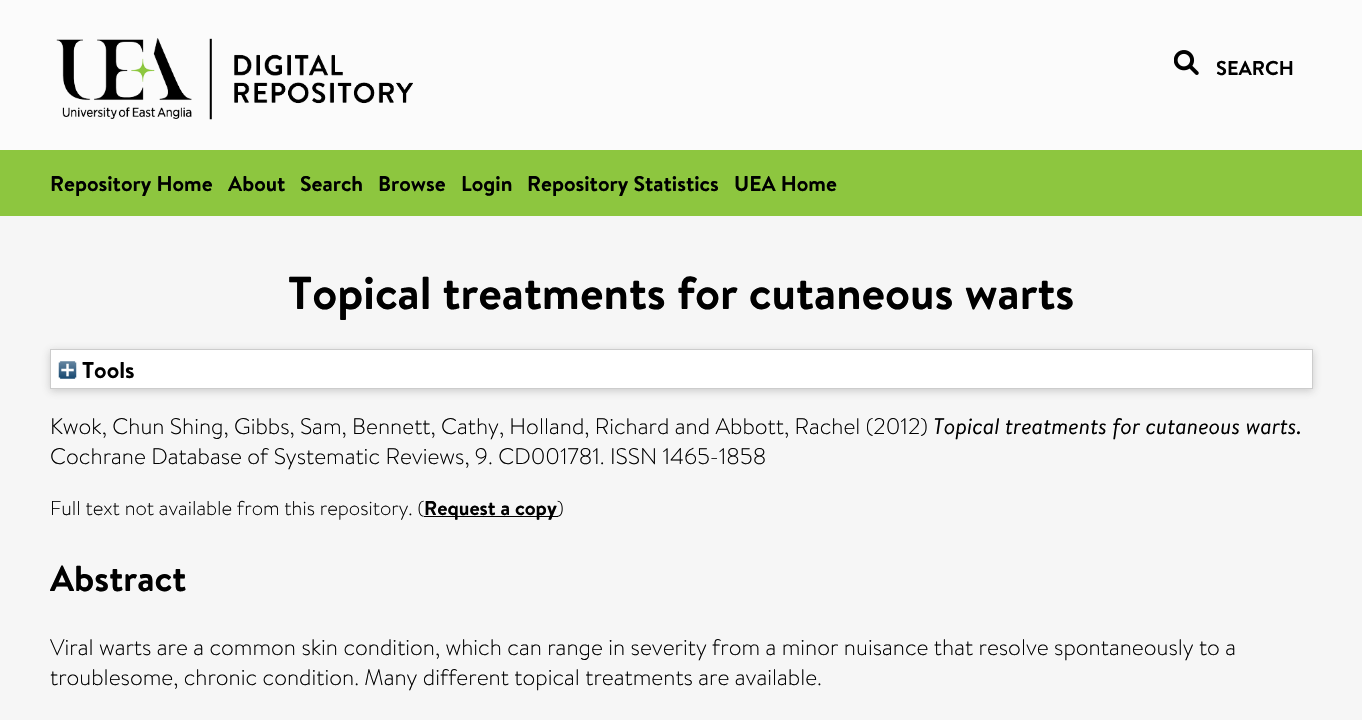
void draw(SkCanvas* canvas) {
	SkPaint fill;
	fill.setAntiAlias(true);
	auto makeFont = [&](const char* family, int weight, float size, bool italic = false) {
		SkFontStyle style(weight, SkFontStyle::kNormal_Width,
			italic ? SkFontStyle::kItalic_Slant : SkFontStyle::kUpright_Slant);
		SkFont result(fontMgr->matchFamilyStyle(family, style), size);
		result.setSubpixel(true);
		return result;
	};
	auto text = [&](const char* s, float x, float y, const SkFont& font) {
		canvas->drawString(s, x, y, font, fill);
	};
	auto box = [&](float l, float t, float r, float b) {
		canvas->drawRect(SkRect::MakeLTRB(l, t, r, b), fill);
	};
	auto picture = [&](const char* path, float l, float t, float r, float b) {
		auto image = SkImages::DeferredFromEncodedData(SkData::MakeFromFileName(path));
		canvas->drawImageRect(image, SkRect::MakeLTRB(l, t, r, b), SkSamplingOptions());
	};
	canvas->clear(0xFFF6F6F6);
	fill.setColor(0xFFFBFBFB);
	box(0, 0, 1362, 150);
	picture("image0.png", 56, 38, 413, 120);
	picture("image1.png", 1174, 50, 1199, 75);
	fill.setColor(0xFF8DC63F);
	box(0, 150, 1362, 216);
	fill.setColor(0x4D646464);
	fill.setMaskFilter(SkMaskFilter::MakeBlur(kNormal_SkBlurStyle, 4));
	canvas->drawRect(SkRect::MakeLTRB(50, 351, 1313, 391), fill);
	fill.setMaskFilter(nullptr);
	fill.setColor(0xFFFFFFFF);
	canvas->drawRect(SkRect::MakeLTRB(50.5f, 349.5f, 1312.5f, 388.5f), fill);
	fill.setStyle(SkPaint::kStroke_Style);
	fill.setStrokeWidth(1);
	fill.setColor(0xFFCCCCCC);
	canvas->drawRect(SkRect::MakeLTRB(50.5f, 349.5f, 1312.5f, 388.5f), fill);
	picture("image2.png", 58, 361, 77, 379);
	fill.setStyle(SkPaint::kFill_Style);
	fill.setColor(0xFF000000);
	box(424, 516, 558, 517);
	auto font1 = makeFont("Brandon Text", 700, 20);
	text("SEARCH", 1216, 75, font1);
	auto font2 = makeFont("Brandon Text", 700, 21.25f);
	text("Repository Home", 50, 191, font2);
	text("About", 228, 191, font2);
	text("Search", 300, 191, font2);
	text("Browse", 378, 191, font2);
	text("Login", 461, 191, font2);
	text("Repository Statistics", 527, 191, font2);
	text("UEA Home", 734, 191, font2);
	auto font3 = makeFont("Brandon Text", 700, 46);
	text("Topical treatments for cutaneous warts", 288, 309, font3);
	auto font4 = makeFont("Brandon Text", 700, 23);
	text("Tools", 82, 378, font4);
	auto font5 = makeFont("Brandon Text", 300, 22.5f);
	text("Kwok, Chun Shing, Gibbs, Sam, Bennett, Cathy, Holland, Richard and Abbott, Rachel (2012)", 50, 434, font5);
	auto font6 = makeFont("Brandon Text", 400, 22.5f, true);
	text("Topical treatments for cutaneous warts.", 933, 434, font6);
	text("Cochrane Database of Systematic Reviews, 9. CD001781. ISSN 1465-1858", 50, 464, font5);
	auto font7 = makeFont("Brandon Text", 300, 20);
	text("Full text not available from this repository. (", 50, 515, font7);
	text("Request a copy", 424, 515, font1);
	text(")", 557, 515, font7);
	auto font8 = makeFont("Brandon Text", 700, 36);
	text("Abstract", 50, 591, font8);
	text("Viral warts are a common skin condition, which can range in severity from a minor nuisance that resolve spontaneously to a", 50, 655, font5);
	text("troublesome, chronic condition. Many different topical treatments are available.", 50, 685, font5);
}
